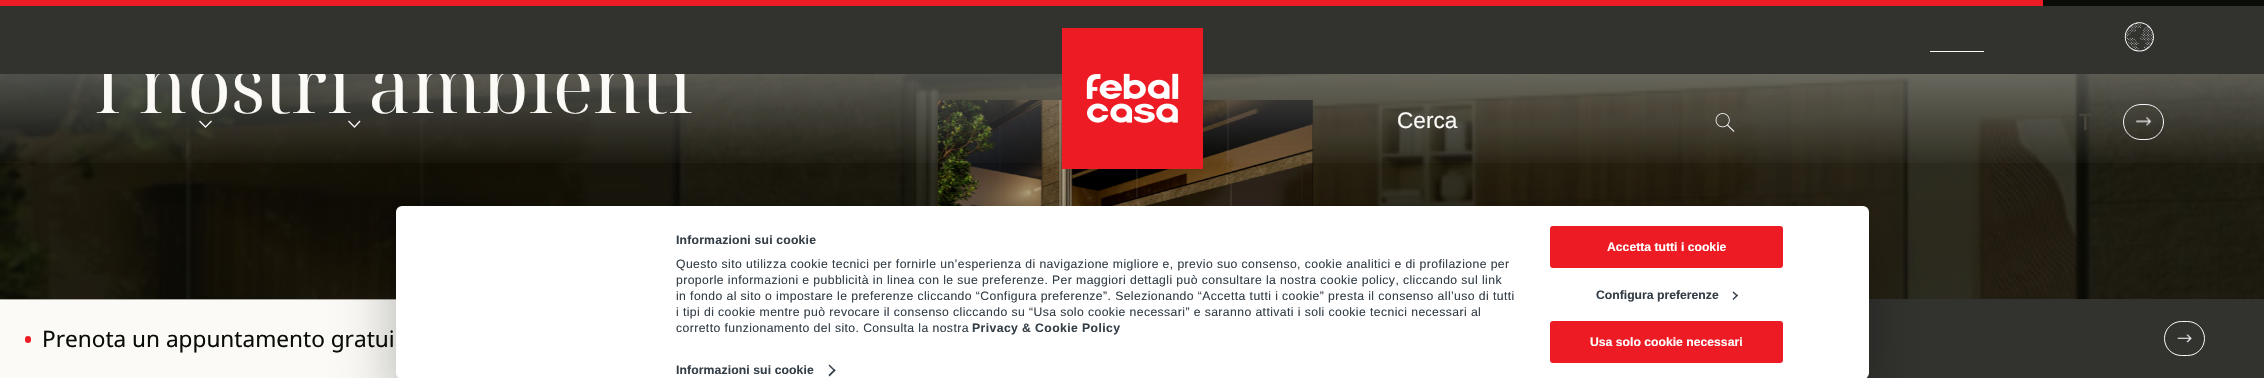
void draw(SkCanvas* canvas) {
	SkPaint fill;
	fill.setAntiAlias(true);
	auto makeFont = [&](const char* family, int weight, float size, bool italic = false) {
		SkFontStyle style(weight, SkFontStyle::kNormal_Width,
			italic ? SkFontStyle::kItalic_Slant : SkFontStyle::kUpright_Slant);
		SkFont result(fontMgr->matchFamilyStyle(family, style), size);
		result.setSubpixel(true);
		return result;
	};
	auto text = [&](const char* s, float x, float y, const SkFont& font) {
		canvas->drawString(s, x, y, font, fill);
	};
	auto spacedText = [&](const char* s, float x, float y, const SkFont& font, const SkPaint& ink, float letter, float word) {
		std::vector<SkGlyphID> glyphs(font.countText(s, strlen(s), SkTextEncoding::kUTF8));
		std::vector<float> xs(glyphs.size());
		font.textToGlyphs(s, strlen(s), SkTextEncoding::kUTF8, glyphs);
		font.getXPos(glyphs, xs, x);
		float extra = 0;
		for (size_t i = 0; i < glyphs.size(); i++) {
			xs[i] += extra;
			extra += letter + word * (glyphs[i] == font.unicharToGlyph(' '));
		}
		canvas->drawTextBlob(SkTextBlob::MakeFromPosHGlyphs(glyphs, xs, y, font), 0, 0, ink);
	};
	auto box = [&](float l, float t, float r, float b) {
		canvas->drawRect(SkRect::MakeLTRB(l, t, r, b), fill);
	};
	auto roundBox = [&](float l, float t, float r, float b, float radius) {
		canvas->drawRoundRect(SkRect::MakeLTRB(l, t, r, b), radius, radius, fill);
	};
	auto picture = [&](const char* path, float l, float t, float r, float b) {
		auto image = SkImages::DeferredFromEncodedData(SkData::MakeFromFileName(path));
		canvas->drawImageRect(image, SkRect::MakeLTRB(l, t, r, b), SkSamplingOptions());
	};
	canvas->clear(0xFFFFFFFF);
	fill.setColor(0xFF0A0C06);
	box(2043, 0, 2264, 6);
	fill.setColor(0xFFED1C24);
	box(0, 0, 2043, 6);
	picture("image4.png", 0, 74, 2264, 299);
	fill.setColor(0xFF0A0C06);
	box(1312, 100, 1313, 206);
	picture("image5.png", 938, 100, 1313, 206);
	{
		const SkColor colors[] = {0x80FBFAF6, 0x00FBFAF6};
		const float stops[] = {0, 1};
		const SkPoint ends[] = {{1133, 0}, {1133, 170}};
		fill.setShader(SkGradientShader::MakeLinear(ends, colors, stops, 2, SkTileMode::kClamp));
		fill.setAlpha(255);
	}
	box(0, 74, 2264, 163);
	fill.setStyle(SkPaint::kStroke_Style);
	fill.setStrokeWidth(1.4f);
	fill.setShader(nullptr);
	fill.setColor(0xFFF5F3F9);
	canvas->drawPath(SkPathBuilder().moveTo(199.5f, 121).lineTo(205.5f, 127).lineTo(211.5f, 121).detach(), fill);
	canvas->drawPath(SkPathBuilder().moveTo(348.5f, 121).lineTo(354.5f, 127).lineTo(360, 121).detach(), fill);
	picture("image2.png", 1715, 113, 1735, 132);
	picture("image3.png", 2136, 116, 2152, 126);
	fill.setStrokeWidth(1);
	canvas->drawRoundRect(SkRect::MakeLTRB(2123.5f, 104.5f, 2163.5f, 139.5f), 17.5f, 17.5f, fill);
	fill.setStyle(SkPaint::kFill_Style);
	fill.setColor(0xFFFBFAF6);
	box(0, 300, 399, 378);
	fill.setColor(0xFFA8A7A0);
	box(0, 299, 396, 300);
	fill.setColor(0xFFED1C24);
	roundBox(25, 336, 31, 343, 3);
	fill.setColor(0xFF32322F);
	box(1866, 299, 2264, 378);
	picture("image6.png", 2177, 334, 2192, 343);
	fill.setStyle(SkPaint::kStroke_Style);
	fill.setColor(0xFFFBFAF6);
	canvas->drawRoundRect(SkRect::MakeLTRB(2164.5f, 321.5f, 2204.5f, 355.5f), 17, 17, fill);
	auto font1 = makeFont("Noto Serif Display", 400, 75.5f);
	fill.setStyle(SkPaint::kFill_Style);
	text("I nostri ambienti", 94, 113, font1);
	fill.setColor(0xFF32322F);
	box(0, 6, 2264, 74);
	picture("image1.png", 1062, 28, 1203, 169);
	picture("image0.png", 2124, 22, 2154, 52);
	fill.setColor(0xFFFBFAF6);
	box(1930, 51, 1984, 52);
	auto font2 = makeFont("Liberation Sans", 400, 22.6f);
	text("Cerca", 1397, 128, font2);
	auto font3 = makeFont("Noto Sans", 500, 22.6f);
	fill.setColor(0xFF474439);
	text("T", 2079, 130, font3);
	auto font4 = makeFont("Noto Sans", 400, 22.6f);
	fill.setColor(0xFF0A0C06);
	text("Prenota un appuntamento gratui", 42, 347, font4);
	fill.setColor(0x4D000000);
	fill.setMaskFilter(SkMaskFilter::MakeBlur(kNormal_SkBlurStyle, 28.5f));
	canvas->drawRoundRect(SkRect::MakeLTRB(396, 231, 1869, 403), 6, 6, fill);
	fill.setMaskFilter(nullptr);
	fill.setColor(0xFFFFFFFF);
	roundBox(396, 206, 1869, 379, 6);
	auto font5 = makeFont("Liberation Sans", 700, 12.2f);
	fill.setColor(0xFF343E47);
	spacedText("Informazioni sui cookie", 676, 244, font5, fill, 0.2f, 0);
	auto font6 = makeFont("Liberation Sans", 400, 12.2f);
	spacedText("Questo sito utilizza cookie tecnici per fornirle un’esperienza di navigazione migliore e, previo suo consenso, cookie analitici e di profilazione per", 676, 268, font6, fill, 0.41f, 0);
	spacedText("proporle informazioni e pubblicità in linea con le sue preferenze. Per maggiori dettagli può consultare la nostra cookie policy, cliccando sul link", 676, 284, font6, fill, 0.41f, 0);
	spacedText("in fondo al sito o impostare le preferenze cliccando “Configura preferenze”. Selezionando “Accetta tutti i cookie” presta il consenso all’uso di tutti", 676, 300, font6, fill, 0.41f, 0);
	spacedText("i tipi di cookie mentre può revocare il consenso cliccando su “Usa solo cookie necessari” e saranno attivati i soli cookie tecnici necessari al", 676, 316, font6, fill, 0.41f, 0);
	spacedText("corretto funzionamento del sito. Consulta la nostra", 676, 332, font6, fill, 0.41f, 0);
	spacedText("Privacy & Cookie Policy", 972, 332, font5, fill, 0.41f, 0);
	spacedText("Informazioni sui cookie", 676, 374, font5, fill, 0.1f, 0);
	canvas->drawPath(SkPathBuilder().moveTo(829.5f, 364.5f).lineTo(835.5f, 370.5f).lineTo(834.5f, 371.5f).lineTo(828.5f, 365.5f).close().detach(), fill);
	canvas->drawPath(SkPathBuilder().moveTo(834.5f, 369).lineTo(835.5f, 370.5f).lineTo(829.5f, 376.5f).lineTo(828.5f, 375).close().detach(), fill);
	fill.setColor(0xFFED1C24);
	canvas->drawRoundRect(SkRect::MakeLTRB(1551, 227, 1782, 267), 2, 2, fill);
	fill.setStyle(SkPaint::kStroke_Style);
	fill.setStrokeWidth(2);
	canvas->drawRoundRect(SkRect::MakeLTRB(1551, 227, 1782, 267), 2, 2, fill);
	fill.setStyle(SkPaint::kFill_Style);
	fill.setColor(0xFFFFFFFF);
	text("Accetta tutti i cookie", 1607, 251, font5);
	fill.setColor(0xFF343E47);
	text("Configura preferenze", 1596, 299, font5);
	canvas->drawPath(SkPathBuilder().moveTo(1733.5f, 291.5f).lineTo(1738, 295.5f).lineTo(1737, 296.5f).lineTo(1732.5f, 292.5f).close().detach(), fill);
	canvas->drawPath(SkPathBuilder().moveTo(1737, 294.5f).lineTo(1738, 295.5f).lineTo(1733.5f, 300).lineTo(1732.5f, 299).close().detach(), fill);
	fill.setColor(0xFFED1C24);
	canvas->drawRoundRect(SkRect::MakeLTRB(1551, 322, 1782, 362), 2, 2, fill);
	fill.setStyle(SkPaint::kStroke_Style);
	canvas->drawRoundRect(SkRect::MakeLTRB(1551, 322, 1782, 362), 2, 2, fill);
	fill.setStyle(SkPaint::kFill_Style);
	fill.setColor(0xFFFFFFFF);
	text("Usa solo cookie necessari", 1590, 346, font5);
}
